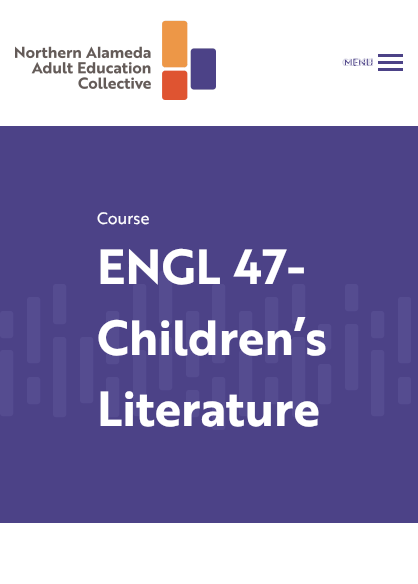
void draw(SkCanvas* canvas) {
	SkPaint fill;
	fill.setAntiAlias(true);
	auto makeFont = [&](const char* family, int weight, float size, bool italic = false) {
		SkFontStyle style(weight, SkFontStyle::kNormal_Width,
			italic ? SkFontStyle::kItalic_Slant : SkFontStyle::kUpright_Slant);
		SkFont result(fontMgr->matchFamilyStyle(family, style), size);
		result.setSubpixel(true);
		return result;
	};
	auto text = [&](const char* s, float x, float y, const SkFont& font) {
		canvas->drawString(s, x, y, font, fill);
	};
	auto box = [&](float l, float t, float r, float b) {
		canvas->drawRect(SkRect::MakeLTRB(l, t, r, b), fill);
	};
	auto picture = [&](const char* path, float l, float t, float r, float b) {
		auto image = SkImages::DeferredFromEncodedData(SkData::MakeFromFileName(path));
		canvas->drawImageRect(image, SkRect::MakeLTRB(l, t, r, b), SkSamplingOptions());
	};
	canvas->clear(0xFFFFFFFF);
	picture("image0.png", 15, 20, 216, 100);
	fill.setColor(0xFF4C4287);
	box(378, 54, 403, 57);
	box(378, 61, 403, 64);
	box(378, 68, 403, 71);
	box(0, 126, 418, 523);
	picture("image1.png", 0, 271, 411, 430);
	auto font1 = makeFont("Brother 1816", 400, 10);
	text("MENU", 344, 66, font1);
	fill.setColor(0xFFD5D3E3);
	text("CLOSE", 342, 66, font1);
	auto font2 = makeFont("Brother 1816", 400, 16);
	fill.setColor(0xFFFFFFFF);
	text("Course", 97, 224, font2);
	auto font3 = makeFont("Brother 1816", 700, 48);
	text("ENGL 47-", 97, 284, font3);
	text("Children’s", 97, 355, font3);
	text("Literature", 97, 426, font3);
}
